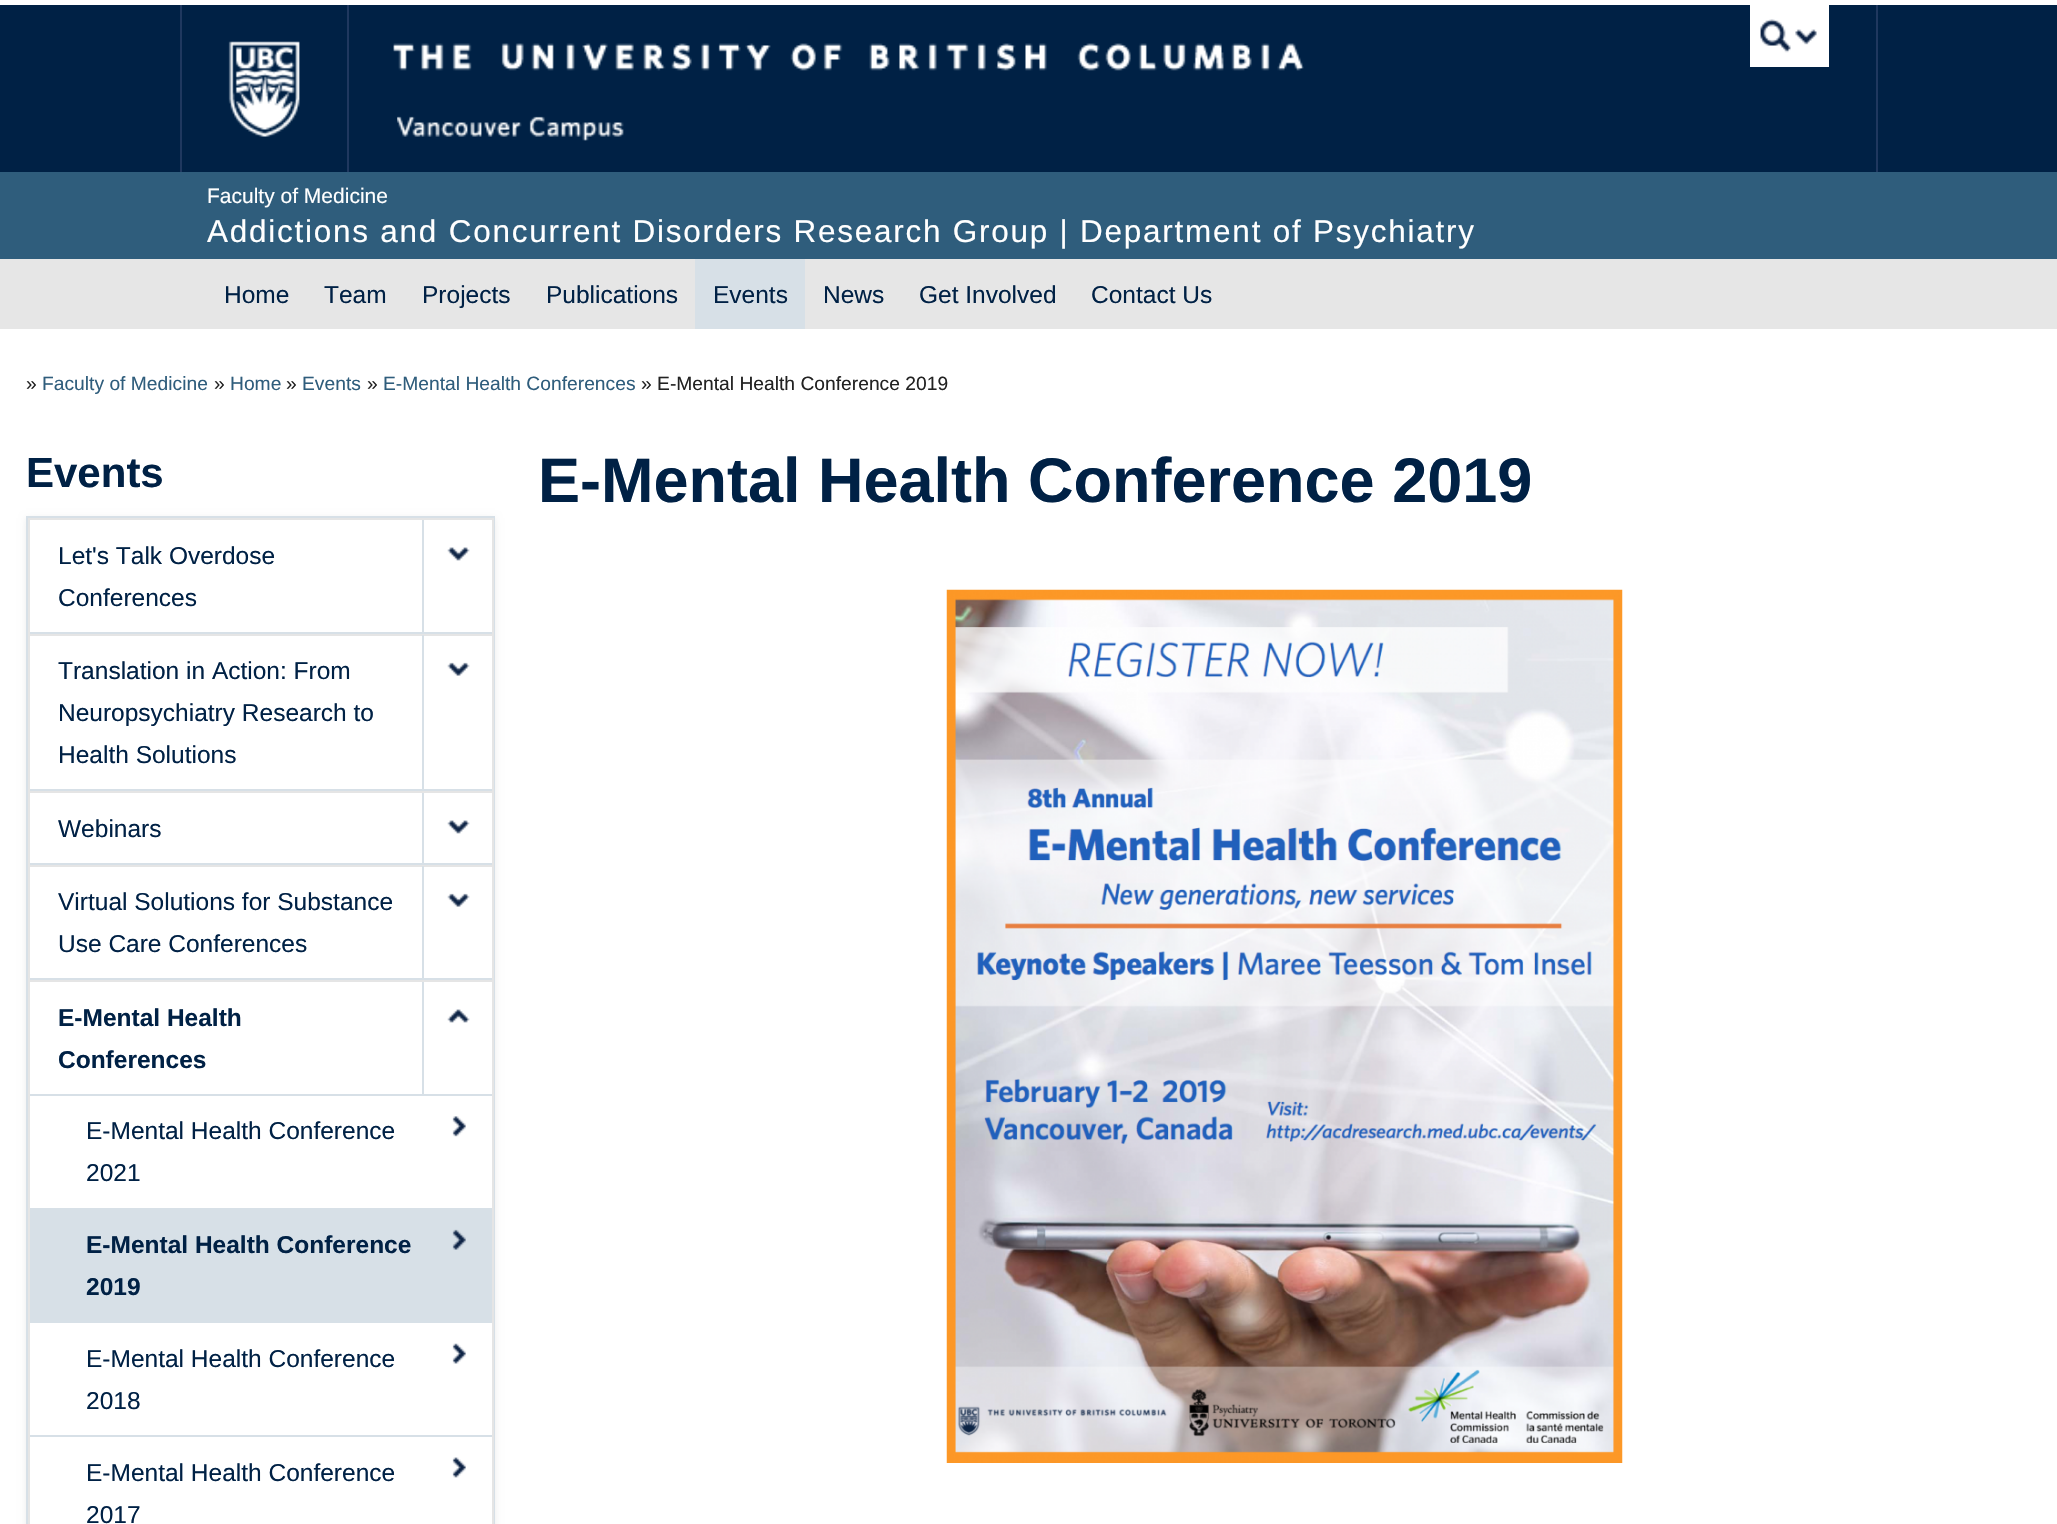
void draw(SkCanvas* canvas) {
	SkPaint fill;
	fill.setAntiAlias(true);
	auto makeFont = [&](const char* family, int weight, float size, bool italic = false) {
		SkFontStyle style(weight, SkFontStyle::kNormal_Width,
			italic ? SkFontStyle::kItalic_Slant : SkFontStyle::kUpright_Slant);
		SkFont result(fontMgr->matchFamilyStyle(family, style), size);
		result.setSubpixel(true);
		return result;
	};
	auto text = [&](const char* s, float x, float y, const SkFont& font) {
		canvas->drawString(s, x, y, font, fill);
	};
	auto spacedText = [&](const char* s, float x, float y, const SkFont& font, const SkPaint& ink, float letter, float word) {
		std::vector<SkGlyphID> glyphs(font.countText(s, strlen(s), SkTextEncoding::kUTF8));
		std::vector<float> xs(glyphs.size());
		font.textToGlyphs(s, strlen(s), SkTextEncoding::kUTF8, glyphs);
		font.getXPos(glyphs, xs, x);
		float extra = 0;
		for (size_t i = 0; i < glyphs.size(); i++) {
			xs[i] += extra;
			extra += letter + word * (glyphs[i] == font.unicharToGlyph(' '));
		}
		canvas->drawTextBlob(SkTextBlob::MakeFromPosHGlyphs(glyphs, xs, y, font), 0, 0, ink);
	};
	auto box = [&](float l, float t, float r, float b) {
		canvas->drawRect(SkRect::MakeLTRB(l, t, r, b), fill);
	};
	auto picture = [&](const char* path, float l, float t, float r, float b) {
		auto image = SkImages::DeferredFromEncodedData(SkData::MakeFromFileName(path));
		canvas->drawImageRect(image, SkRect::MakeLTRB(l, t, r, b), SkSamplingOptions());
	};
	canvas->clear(0xFFE6E6E6);
	fill.setColor(0xFF002145);
	box(0, 5, 2057, 172);
	fill.setColor(0xFFFFFFFF);
	box(0, 0, 2057, 5);
	fill.setColor(0xFF1F385F);
	box(1876, 5, 1878, 172);
	box(180, 5, 182, 172);
	picture("image0.png", 228, 41, 300, 137);
	picture("image1.png", 393, 43, 1304, 71);
	box(347, 5, 349, 172);
	fill.setColor(0xFFFFFFFF);
	box(1750, 5, 1829, 67);
	picture("image2.png", 1760, 19, 1817, 53);
	picture("image3.png", 397, 116, 624, 141);
	fill.setColor(0xFF2F5D7C);
	box(0, 172, 2057, 259);
	fill.setColor(0xFFD7E0E7);
	box(695, 259, 805, 329);
	fill.setColor(0xFFFFFFFF);
	box(0, 329, 2057, 1524);
	fill.setColor(0x12000000);
	fill.setMaskFilter(SkMaskFilter::MakeBlur(kNormal_SkBlurStyle, 3.5f));
	canvas->drawRect(SkRect::MakeLTRB(26, 518, 495, 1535), fill);
	fill.setMaskFilter(nullptr);
	fill.setColor(0xFFFFFFFF);
	box(30, 520, 492, 1524);
	fill.setStyle(SkPaint::kStroke_Style);
	fill.setStrokeWidth(2);
	fill.setColor(0xFFD7E0E7);
	canvas->drawRect(SkRect::MakeLTRB(27, 517, 494, 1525), fill);
	fill.setStyle(SkPaint::kFill_Style);
	fill.setColor(0xFFE5E5E5);
	box(28, 518, 494, 520);
	box(492, 518, 494, 634);
	box(28, 518, 30, 634);
	fill.setColor(0xFFD7E0E7);
	box(30, 632, 492, 634);
	box(422, 520, 424, 632);
	picture("image4.png", 447, 547, 470, 561);
	fill.setColor(0xFFE5E5E5);
	box(28, 634, 494, 636);
	box(492, 634, 494, 791);
	box(28, 634, 30, 791);
	fill.setColor(0xFFD7E0E7);
	box(30, 789, 492, 791);
	box(422, 635, 424, 789);
	picture("image5.png", 447, 662, 470, 676);
	fill.setColor(0xFFE5E5E5);
	box(28, 791, 494, 793);
	box(492, 791, 494, 865);
	box(28, 791, 30, 865);
	fill.setColor(0xFFD7E0E7);
	box(30, 863, 492, 865);
	box(422, 793, 424, 863);
	picture("image4.png", 447, 820, 470, 834);
	fill.setColor(0xFFE5E5E5);
	box(28, 865, 494, 867);
	box(492, 865, 494, 980);
	box(28, 865, 30, 980);
	fill.setColor(0xFFD7E0E7);
	box(30, 978, 492, 980);
	box(422, 866, 424, 978);
	picture("image5.png", 447, 893, 470, 907);
	fill.setColor(0xFFE5E5E5);
	box(28, 980, 494, 982);
	box(492, 980, 494, 1524);
	box(28, 980, 30, 1524);
	fill.setColor(0xFFD7E0E7);
	box(30, 1094, 492, 1096);
	box(422, 982, 424, 1094);
	picture("image6.png", 447, 1009, 470, 1023);
	box(30, 1208, 492, 1323);
	picture("image7.png", 452, 1116, 466, 1137);
	picture("image8.png", 452, 1229, 466, 1250);
	box(30, 1435, 492, 1437);
	picture("image9.png", 452, 1343, 466, 1364);
	picture("image10.png", 452, 1457, 466, 1478);
	picture("image11.png", 946, 589, 1623, 1463);
	auto font1 = makeFont("Liberation Sans", 400, 21);
	fill.setColor(0xFFFFFFFF);
	text("Faculty of Medicine", 207, 203, font1);
	auto font2 = makeFont("Liberation Sans", 400, 31.5f);
	spacedText("Addictions and Concurrent Disorders Research Group | Department of Psychiatry", 207, 242, font2, fill, 1.75f, 0);
	auto font3 = makeFont("Liberation Sans", 400, 24.5f);
	fill.setColor(0xFF002145);
	text("Home", 224, 303, font3);
	text("Team", 324, 303, font3);
	text("Projects", 422, 303, font3);
	text("Publications", 546, 303, font3);
	text("Events", 713, 303, font3);
	text("News", 823, 303, font3);
	text("Get Involved", 919, 303, font3);
	text("Contact Us", 1091, 303, font3);
	auto font4 = makeFont("Liberation Sans", 400, 19.25f);
	fill.setColor(0xFF222222);
	text("»", 26, 390, font4);
	fill.setColor(0xFF2F5D7C);
	text("Faculty of Medicine", 42, 390, font4);
	fill.setColor(0xFF222222);
	text("»", 214, 390, font4);
	fill.setColor(0xFF2F5D7C);
	text("Home", 230, 390, font4);
	fill.setColor(0xFF222222);
	text("»", 286, 390, font4);
	fill.setColor(0xFF2F5D7C);
	text("Events", 302, 390, font4);
	fill.setColor(0xFF222222);
	text("»", 367, 390, font4);
	fill.setColor(0xFF2F5D7C);
	text("E-Mental Health Conferences", 383, 390, font4);
	fill.setColor(0xFF222222);
	text("» E-Mental Health Conference 2019", 641, 390, font4);
	auto font5 = makeFont("Liberation Sans", 700, 42);
	fill.setColor(0xFF002145);
	text("Events", 26, 487, font5);
	text("Let's Talk Overdose", 58, 564, font3);
	text("Conferences", 58, 606, font3);
	text("Translation in Action: From", 58, 679, font3);
	text("Neuropsychiatry Research to", 58, 721, font3);
	text("Health Solutions", 58, 763, font3);
	text("Webinars", 58, 837, font3);
	text("Virtual Solutions for Substance", 58, 910, font3);
	text("Use Care Conferences", 58, 952, font3);
	auto font6 = makeFont("Liberation Sans", 700, 24.5f);
	text("E-Mental Health", 58, 1026, font6);
	text("Conferences", 58, 1068, font6);
	text("E-Mental Health Conference", 86, 1139, font3);
	text("2021", 86, 1181, font3);
	text("E-Mental Health Conference", 86, 1253, font6);
	text("2019", 86, 1295, font6);
	text("E-Mental Health Conference", 86, 1367, font3);
	text("2018", 86, 1409, font3);
	text("E-Mental Health Conference", 86, 1481, font3);
	text("2017", 86, 1523, font3);
	auto font7 = makeFont("Liberation Sans", 700, 63);
	text("E-Mental Health Conference 2019", 538, 502, font7);
}
